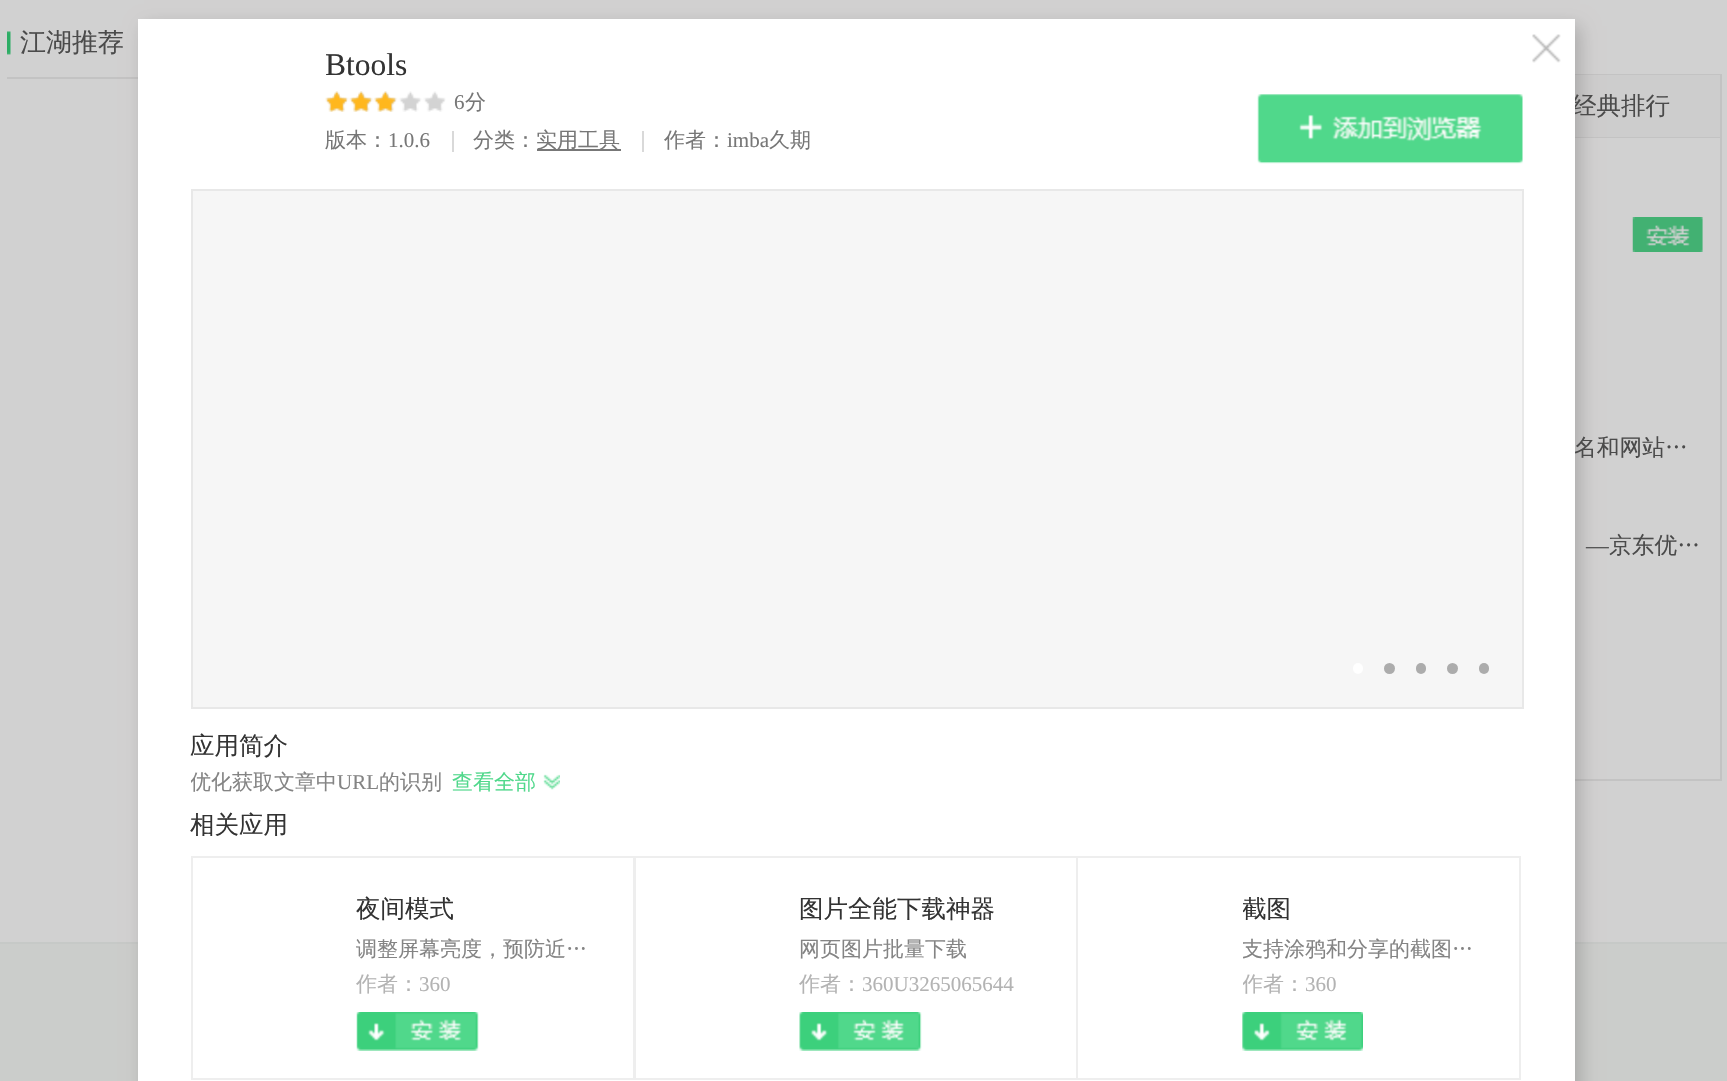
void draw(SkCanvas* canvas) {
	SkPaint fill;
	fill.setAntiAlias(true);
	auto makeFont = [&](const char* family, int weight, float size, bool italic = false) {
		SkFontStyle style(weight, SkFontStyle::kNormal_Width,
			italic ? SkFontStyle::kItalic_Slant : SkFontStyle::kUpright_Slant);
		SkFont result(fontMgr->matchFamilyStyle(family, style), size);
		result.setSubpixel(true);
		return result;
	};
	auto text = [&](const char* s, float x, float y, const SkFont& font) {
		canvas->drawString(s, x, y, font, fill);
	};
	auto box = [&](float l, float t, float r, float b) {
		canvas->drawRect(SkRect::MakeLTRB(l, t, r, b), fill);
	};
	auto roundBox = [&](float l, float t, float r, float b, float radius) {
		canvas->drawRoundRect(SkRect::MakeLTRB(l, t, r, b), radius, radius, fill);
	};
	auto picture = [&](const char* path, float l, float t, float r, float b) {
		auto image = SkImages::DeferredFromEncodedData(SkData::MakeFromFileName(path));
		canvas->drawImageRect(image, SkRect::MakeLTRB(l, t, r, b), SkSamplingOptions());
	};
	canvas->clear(0xFFD1D1D1);
	fill.setColor(0xFFC3C3C3);
	box(7, 77, 138, 79);
	picture("image0.png", 7, 31, 11, 55);
	fill.setStyle(SkPaint::kStroke_Style);
	fill.setStrokeWidth(2);
	canvas->drawRect(SkRect::MakeLTRB(1328, 75, 1721, 780), fill);
	fill.setStyle(SkPaint::kFill_Style);
	fill.setColor(0xFFCDCDCD);
	box(1575, 75, 1720, 137);
	fill.setColor(0xFFC3C3C3);
	box(1575, 137, 1720, 138);
	picture("image1.png", 1632, 217, 1703, 252);
	fill.setColor(0xFFCBCDCB);
	box(0, 944, 1727, 1081);
	fill.setColor(0xFFC6C9C7);
	box(0, 942, 1727, 944);
	fill.setColor(0x30040000);
	fill.setMaskFilter(SkMaskFilter::MakeBlur(kNormal_SkBlurStyle, 9));
	canvas->drawRect(SkRect::MakeLTRB(144, 26, 1580, 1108), fill);
	fill.setMaskFilter(nullptr);
	canvas->save();
	canvas->clipRect(SkRect::MakeLTRB(7, 30, 1302, 77));
	auto font1 = makeFont("WenQuanYi Zen Hei", 500, 26);
	fill.setColor(0xFF4B4B4B);
	text("江湖推荐", 20, 51, font1);
	canvas->restore();
	auto font2 = makeFont("WenQuanYi Zen Hei", 500, 24.5f);
	text("经典排行", 1572, 114, font2);
	auto font3 = makeFont("WenQuanYi Zen Hei", 500, 22.75f);
	text("名和网站…", 1574, 455, font3);
	auto font4 = makeFont("Liberation Serif", 400, 22.75f);
	text("—", 1586, 553, font4);
	text("京东优…", 1609, 553, font3);
	fill.setColor(0xFFFFFFFF);
	box(138, 19, 1575, 1081);
	picture("image2.png", 1532, 34, 1561, 63);
	canvas->save();
	canvas->clipRect(SkRect::MakeLTRB(326, 47, 1523, 82));
	auto font5 = makeFont("Liberation Serif", 400, 31.5f);
	fill.setColor(0xFF333333);
	text("Btools", 325, 75, font5);
	canvas->restore();
	picture("image3.png", 326, 91, 446, 112);
	picture("image4.png", 325, 91, 397, 112);
	auto font6 = makeFont("Liberation Serif", 400, 21);
	fill.setColor(0xFF777777);
	text("6", 454, 109, font6);
	auto font7 = makeFont("WenQuanYi Zen Hei", 500, 21);
	text("分", 465, 109, font7);
	picture("image5.png", 1257, 94, 1523, 164);
	text("版本：", 325, 147, font7);
	text("1.0.6", 388, 147, font6);
	fill.setColor(0xFFD9D9D9);
	box(452, 131, 454, 152);
	fill.setColor(0xFF777777);
	text("分类：", 473, 147, font7);
	box(537, 149, 621, 151);
	text("实用工具", 536, 147, font7);
	fill.setColor(0xFFD9D9D9);
	box(642, 131, 644, 152);
	fill.setColor(0xFF777777);
	text("作者：", 664, 147, font7);
	text("imba", 727, 147, font6);
	text("久期", 769, 147, font7);
	fill.setColor(0xFFF6F6F6);
	canvas->drawRect(SkRect::MakeLTRB(192, 190, 1523, 708), fill);
	fill.setStyle(SkPaint::kStroke_Style);
	fill.setColor(0xFFE8E8E8);
	canvas->drawRect(SkRect::MakeLTRB(192, 190, 1523, 708), fill);
	fill.setStyle(SkPaint::kFill_Style);
	fill.setColor(0xFFFFFFFF);
	roundBox(1353, 663, 1363, 674, 5);
	fill.setColor(0xFFACACAC);
	canvas->drawCircle(1389.5f, 668.5f, 5.5f, fill);
	roundBox(1416, 663, 1426, 674, 5);
	canvas->drawCircle(1452.5f, 668.5f, 5.5f, fill);
	roundBox(1479, 663, 1489, 674, 5);
	fill.setColor(0xFF333333);
	text("应用简介", 190, 754, font2);
	canvas->save();
	canvas->clipRect(SkRect::MakeLTRB(191, 768, 443, 798));
	fill.setColor(0xFF848484);
	text("优化获取文章中", 190, 789, font7);
	canvas->restore();
	text("URL", 337, 789, font6);
	text("的识别", 379, 789, font7);
	fill.setColor(0xFF50D88B);
	text("查看全部", 452, 789, font7);
	picture("image6.png", 543, 774, 560, 790);
	fill.setColor(0xFF333333);
	text("相关应用", 190, 833, font2);
	fill.setStyle(SkPaint::kStroke_Style);
	fill.setColor(0xFFEEEEEE);
	canvas->drawRect(SkRect::MakeLTRB(192, 857, 634, 1079), fill);
	fill.setStyle(SkPaint::kFill_Style);
	fill.setColor(0xFF333333);
	text("夜间模式", 356, 917, font2);
	fill.setColor(0xFF848484);
	text("调整屏幕亮度，预防近…", 356, 956, font7);
	fill.setColor(0xFFB3B3B3);
	text("作者：", 356, 991, font7);
	text("360", 419, 991, font6);
	picture("image7.png", 356, 1012, 479, 1051);
	fill.setStyle(SkPaint::kStroke_Style);
	fill.setColor(0xFFEEEEEE);
	canvas->drawRect(SkRect::MakeLTRB(635, 857, 1077, 1079), fill);
	fill.setStyle(SkPaint::kFill_Style);
	fill.setColor(0xFF333333);
	text("图片全能下载神器", 799, 917, font2);
	fill.setColor(0xFF848484);
	text("网页图片批量下载", 799, 956, font7);
	fill.setColor(0xFFB3B3B3);
	text("作者：", 799, 991, font7);
	text("360U3265065644", 862, 991, font6);
	picture("image8.png", 799, 1012, 922, 1051);
	fill.setStyle(SkPaint::kStroke_Style);
	fill.setColor(0xFFEEEEEE);
	canvas->drawRect(SkRect::MakeLTRB(1077, 857, 1520, 1079), fill);
	canvas->save();
	canvas->clipRect(SkRect::MakeLTRB(1243, 893, 1491, 928));
	fill.setStyle(SkPaint::kFill_Style);
	fill.setColor(0xFF333333);
	text("截图", 1242, 917, font2);
	canvas->restore();
	canvas->save();
	canvas->clipRect(SkRect::MakeLTRB(1243, 935, 1491, 963));
	fill.setColor(0xFF848484);
	text("支持涂鸦和分享的截图…", 1242, 956, font7);
	canvas->restore();
	canvas->save();
	canvas->clipRect(SkRect::MakeLTRB(1243, 970, 1491, 998));
	fill.setColor(0xFFB3B3B3);
	text("作者：", 1242, 991, font7);
	canvas->restore();
	text("360", 1305, 991, font6);
	picture("image9.png", 1242, 1012, 1363, 1051);
}
